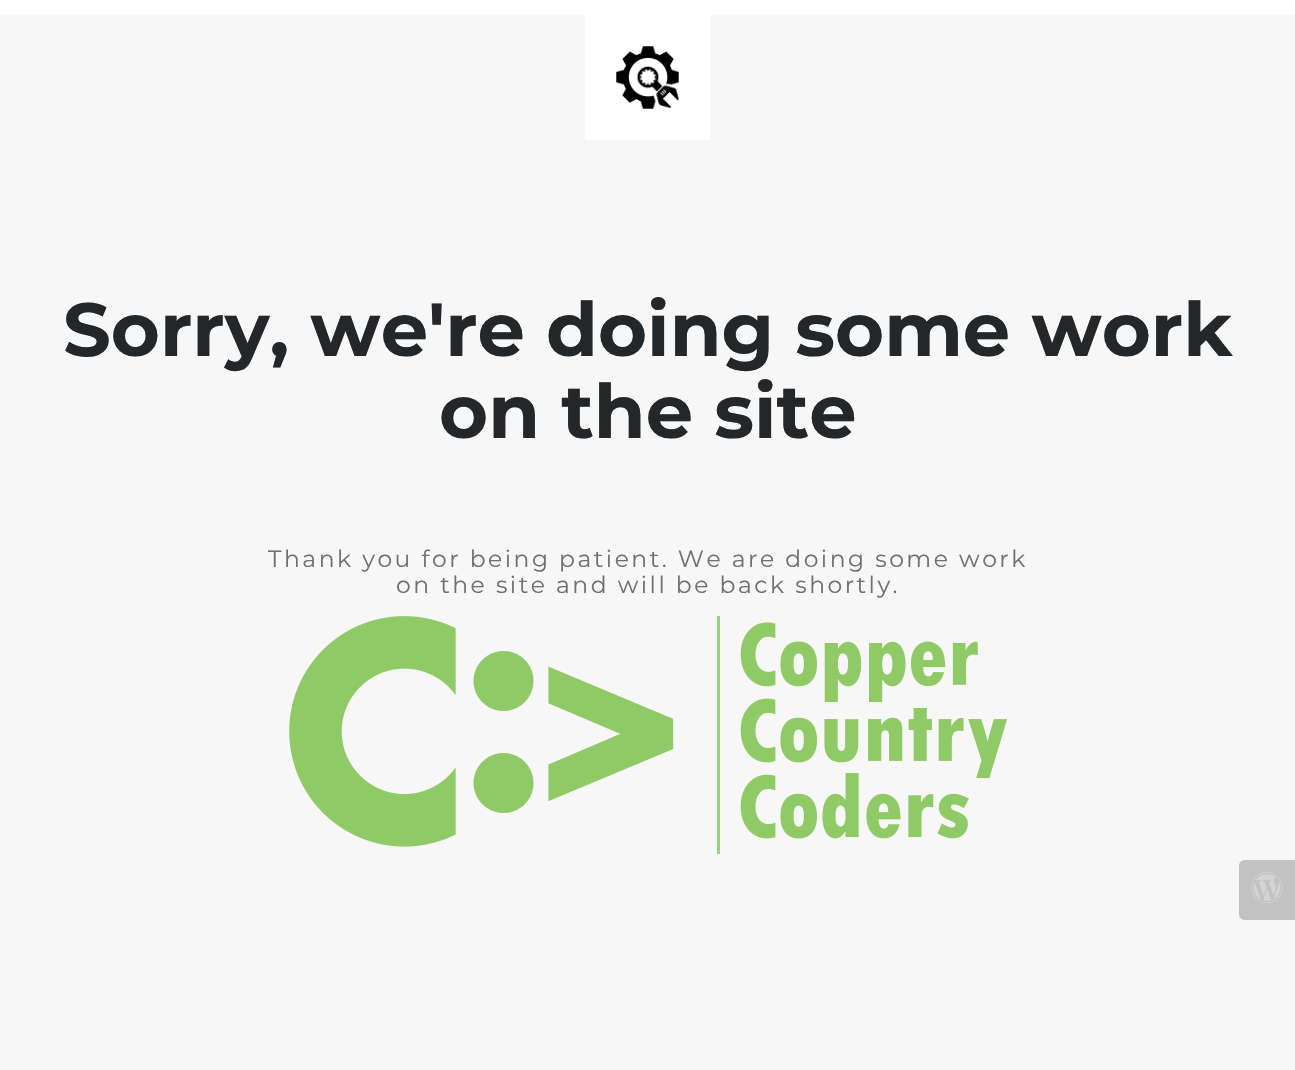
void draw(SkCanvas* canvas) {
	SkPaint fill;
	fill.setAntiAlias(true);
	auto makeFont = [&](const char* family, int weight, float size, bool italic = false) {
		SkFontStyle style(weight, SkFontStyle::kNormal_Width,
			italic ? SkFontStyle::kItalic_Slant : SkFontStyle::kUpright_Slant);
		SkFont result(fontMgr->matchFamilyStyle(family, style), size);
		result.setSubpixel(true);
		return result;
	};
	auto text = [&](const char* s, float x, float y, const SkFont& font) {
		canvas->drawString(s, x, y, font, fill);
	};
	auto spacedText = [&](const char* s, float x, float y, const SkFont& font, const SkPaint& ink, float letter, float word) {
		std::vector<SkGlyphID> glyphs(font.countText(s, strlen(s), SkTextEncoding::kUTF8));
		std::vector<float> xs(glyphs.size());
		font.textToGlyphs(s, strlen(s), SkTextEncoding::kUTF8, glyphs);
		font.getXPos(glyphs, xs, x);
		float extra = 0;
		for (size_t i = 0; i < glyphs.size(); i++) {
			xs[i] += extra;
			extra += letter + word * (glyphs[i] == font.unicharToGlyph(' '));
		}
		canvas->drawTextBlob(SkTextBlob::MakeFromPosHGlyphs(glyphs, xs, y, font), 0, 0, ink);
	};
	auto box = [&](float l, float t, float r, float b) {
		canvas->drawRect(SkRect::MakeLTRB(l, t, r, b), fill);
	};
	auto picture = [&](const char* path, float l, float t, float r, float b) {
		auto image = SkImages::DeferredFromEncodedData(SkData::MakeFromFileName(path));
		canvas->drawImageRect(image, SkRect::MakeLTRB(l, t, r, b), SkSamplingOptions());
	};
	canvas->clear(0xFFF7F7F7);
	fill.setColor(0xFFFFFFFF);
	box(0, 0, 1295, 15);
	box(585, 15, 710, 140);
	picture("image0.png", 616, 46, 679, 109);
	picture("image1.png", 289, 616, 1007, 854);
	fill.setColor(0xFFC2C2C2);
	canvas->drawPath(SkPathBuilder().moveTo(1245, 860).lineTo(1295, 860).lineTo(1295, 920).lineTo(1245, 920).cubicTo(1241.5f, 920, 1239, 917.5f, 1239, 914).lineTo(1239, 866).cubicTo(1239, 862.5f, 1241.5f, 860, 1245, 860).close().detach(), fill);
	picture("image2.png", 1251, 872, 1283, 903);
	auto font1 = makeFont("Montserrat", 100, 75);
	fill.setColor(0xFF23272A);
	text("Sorry, we're doing some work", 63, 356, font1);
	text("on the site", 439, 438, font1);
	auto font2 = makeFont("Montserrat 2", 100, 23.45f);
	fill.setColor(0xFF707070);
	spacedText("Thank you for being patient. We are doing some work", 268, 567, font2, fill, 2.5f, 0);
	spacedText("on the site and will be back shortly.", 396, 593, font2, fill, 2.5f, 0);
}
